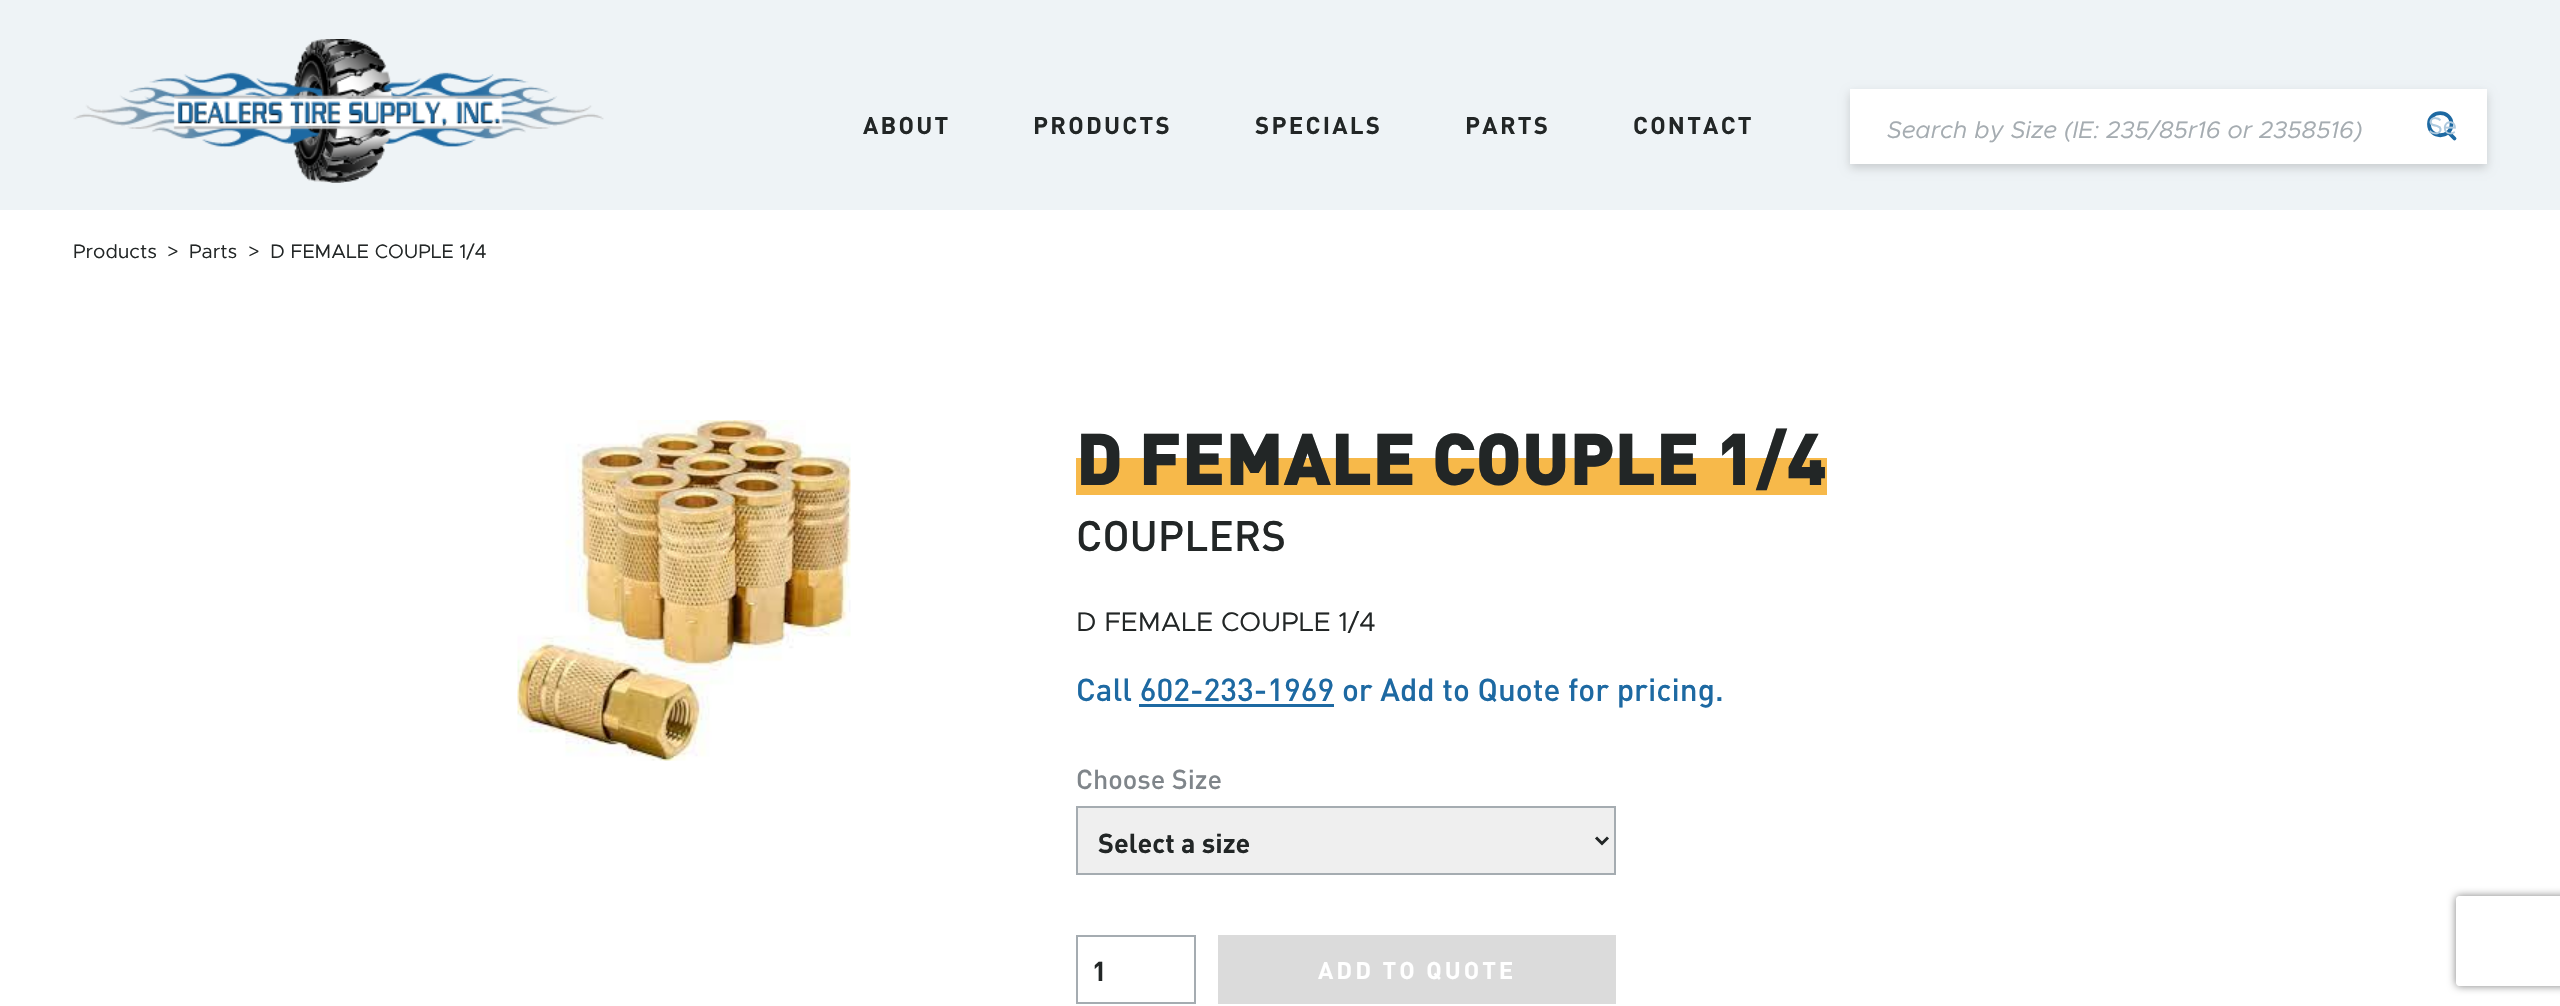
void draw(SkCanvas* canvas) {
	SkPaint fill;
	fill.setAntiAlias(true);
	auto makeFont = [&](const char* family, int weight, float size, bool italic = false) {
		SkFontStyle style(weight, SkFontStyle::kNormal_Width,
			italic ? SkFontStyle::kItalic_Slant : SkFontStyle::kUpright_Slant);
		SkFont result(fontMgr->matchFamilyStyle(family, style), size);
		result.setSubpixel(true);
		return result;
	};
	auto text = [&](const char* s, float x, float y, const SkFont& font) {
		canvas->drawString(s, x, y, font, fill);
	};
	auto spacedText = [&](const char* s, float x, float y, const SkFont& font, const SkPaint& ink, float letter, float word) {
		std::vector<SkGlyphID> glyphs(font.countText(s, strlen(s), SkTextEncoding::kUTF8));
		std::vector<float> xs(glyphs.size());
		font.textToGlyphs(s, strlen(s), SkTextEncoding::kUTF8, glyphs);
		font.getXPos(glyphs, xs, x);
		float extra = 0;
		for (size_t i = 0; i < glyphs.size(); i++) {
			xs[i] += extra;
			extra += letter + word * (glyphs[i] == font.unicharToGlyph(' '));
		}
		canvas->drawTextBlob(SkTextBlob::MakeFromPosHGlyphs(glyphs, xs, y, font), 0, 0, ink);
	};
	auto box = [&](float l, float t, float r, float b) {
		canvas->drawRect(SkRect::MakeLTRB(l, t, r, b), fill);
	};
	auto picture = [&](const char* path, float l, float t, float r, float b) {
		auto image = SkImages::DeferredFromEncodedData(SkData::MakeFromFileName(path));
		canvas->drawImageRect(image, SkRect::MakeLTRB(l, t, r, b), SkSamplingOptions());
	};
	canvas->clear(0xFFFFFFFF);
	fill.setColor(0xFFEEF3F6);
	box(0, 0, 2560, 210);
	picture("image0.png", 73, 39, 604, 183);
	fill.setColor(0x29000000);
	fill.setMaskFilter(SkMaskFilter::MakeBlur(kNormal_SkBlurStyle, 4.5f));
	canvas->drawRect(SkRect::MakeLTRB(1850, 93, 2487, 168), fill);
	fill.setMaskFilter(nullptr);
	fill.setColor(0xFFFFFFFF);
	box(1850, 89, 2487, 164);
	fill.setStyle(SkPaint::kStroke_Style);
	fill.setStrokeWidth(3.8f);
	fill.setStrokeCap(SkPaint::kRound_Cap);
	fill.setStrokeJoin(SkPaint::kRound_Join);
	fill.setColor(0xFF1D69A2);
	canvas->drawPath(SkPathBuilder().moveTo(2451.5f, 124).cubicTo(2451.5f, 139, 2429, 139, 2429, 124).cubicTo(2429, 109.5f, 2451.5f, 109.5f, 2451.5f, 124).close().moveTo(2454.5f, 138.5f).lineTo(2448, 132).detach(), fill);
	picture("image1.png", 517, 420, 851, 761);
	fill.setStyle(SkPaint::kFill_Style);
	fill.setColor(0xFFF7B94A);
	box(1076, 458, 1827, 495);
	fill.setColor(0xFF1D69A2);
	box(1139, 704, 1334, 707);
	fill.setColor(0xFFEFEFEF);
	canvas->drawRect(SkRect::MakeLTRB(1077, 807, 1615, 874), fill);
	fill.setStyle(SkPaint::kStroke_Style);
	fill.setStrokeWidth(2);
	fill.setStrokeCap(SkPaint::kButt_Cap);
	fill.setStrokeJoin(SkPaint::kMiter_Join);
	fill.setColor(0xFFA5ACB1);
	canvas->drawRect(SkRect::MakeLTRB(1077, 807, 1615, 874), fill);
	fill.setStrokeWidth(3);
	fill.setColor(0xFF222626);
	canvas->drawPath(SkPathBuilder().moveTo(1596, 837.5f).lineTo(1602, 843.5f).lineTo(1608, 837.5f).detach(), fill);
	fill.setStrokeWidth(2);
	fill.setColor(0xFFA5ACB1);
	canvas->drawRect(SkRect::MakeLTRB(1077, 936, 1195, 1003), fill);
	fill.setStyle(SkPaint::kFill_Style);
	fill.setColor(0xFFDBDBDB);
	box(1218, 935, 1616, 1004);
	canvas->save();
	canvas->clipPath(SkPathBuilder(SkPathFillType::kEvenOdd).moveTo(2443, 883).lineTo(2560, 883).lineTo(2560, 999).lineTo(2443, 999).close().moveTo(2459, 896).lineTo(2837, 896).cubicTo(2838.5f, 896, 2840, 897.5f, 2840, 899).lineTo(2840, 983).cubicTo(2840, 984.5f, 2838.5f, 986, 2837, 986).lineTo(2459, 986).cubicTo(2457.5f, 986, 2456, 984.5f, 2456, 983).lineTo(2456, 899).cubicTo(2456, 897.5f, 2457.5f, 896, 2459, 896).close().detach(), true);
	fill.setColor(0xFF808080);
	fill.setMaskFilter(SkMaskFilter::MakeBlur(kNormal_SkBlurStyle, 4));
	canvas->drawRoundRect(SkRect::MakeLTRB(2456, 896, 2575, 986), 3, 3, fill);
	fill.setMaskFilter(nullptr);
	canvas->restore();
	auto font1 = makeFont("DIN", 700, 24);
	fill.setColor(0xFF222626);
	spacedText("ABOUT", 863, 134, font1, fill, 2.25f, 0);
	spacedText("PRODUCTS", 1033, 134, font1, fill, 2.25f, 0);
	spacedText("SPECIALS", 1255, 134, font1, fill, 2.25f, 0);
	spacedText("PARTS", 1465, 134, font1, fill, 2.25f, 0);
	spacedText("CONTACT", 1633, 134, font1, fill, 2.25f, 0);
	auto font2 = makeFont("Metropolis", 400, 24, true);
	fill.setColor(0xFFA5ACB1);
	text("Search by Size (IE: 235/85r16 or 2358516)", 1887, 138, font2);
	auto font3 = makeFont("Metropolis", 400, 24);
	fill.setColor(0xFFAEC9DE);
	text("Se", 2428, 134, font3);
	auto font4 = makeFont("Metropolis", 400, 19.5f);
	fill.setColor(0xFF222626);
	text("Products", 73, 258, font4);
	text(">", 167, 258, font4);
	text("Parts", 189, 258, font4);
	text(">", 248, 258, font4);
	text("D FEMALE COUPLE 1/4", 270, 258, font4);
	auto font5 = makeFont("DIN", 900, 72);
	text("D FEMALE COUPLE 1/4", 1076, 485, font5);
	auto font6 = makeFont("DIN", 500, 42);
	text("COUPLERS", 1076, 551, font6);
	auto font7 = makeFont("Metropolis", 400, 27);
	text("D FEMALE COUPLE 1/4", 1076, 631, font7);
	auto font8 = makeFont("DIN", 500, 31.5f);
	fill.setColor(0xFF1D69A2);
	text("Call 602-233-1969 or Add to Quote for pricing.", 1076, 701, font8);
	auto font9 = makeFont("DIN", 500, 27);
	fill.setColor(0xFF7F858A);
	text("Choose Size", 1076, 789, font9);
	auto font10 = makeFont("DIN", 700, 27);
	fill.setColor(0xFF222626);
	text("Select a size", 1098, 853, font10);
	text("1", 1092, 981, font10);
	fill.setColor(0xFFFFFFFF);
	spacedText("ADD TO QUOTE", 1318, 979, font1, fill, 3, 0);
}
